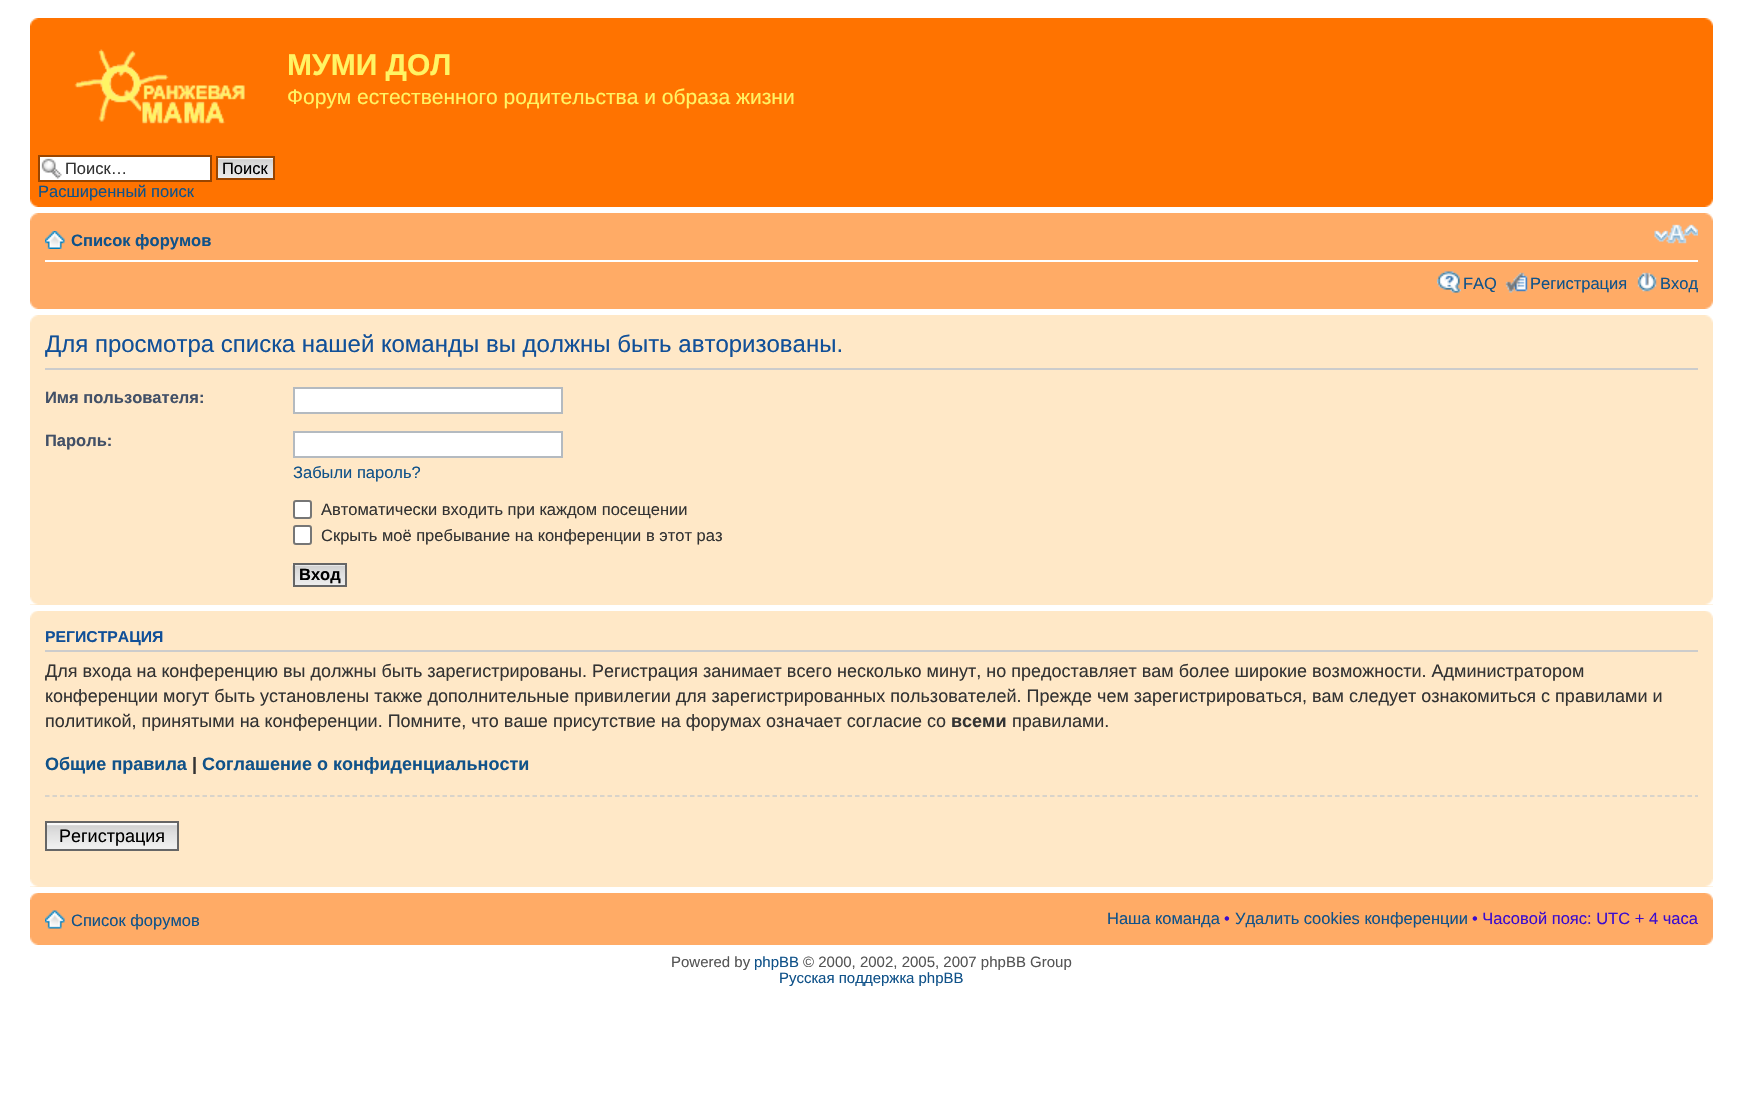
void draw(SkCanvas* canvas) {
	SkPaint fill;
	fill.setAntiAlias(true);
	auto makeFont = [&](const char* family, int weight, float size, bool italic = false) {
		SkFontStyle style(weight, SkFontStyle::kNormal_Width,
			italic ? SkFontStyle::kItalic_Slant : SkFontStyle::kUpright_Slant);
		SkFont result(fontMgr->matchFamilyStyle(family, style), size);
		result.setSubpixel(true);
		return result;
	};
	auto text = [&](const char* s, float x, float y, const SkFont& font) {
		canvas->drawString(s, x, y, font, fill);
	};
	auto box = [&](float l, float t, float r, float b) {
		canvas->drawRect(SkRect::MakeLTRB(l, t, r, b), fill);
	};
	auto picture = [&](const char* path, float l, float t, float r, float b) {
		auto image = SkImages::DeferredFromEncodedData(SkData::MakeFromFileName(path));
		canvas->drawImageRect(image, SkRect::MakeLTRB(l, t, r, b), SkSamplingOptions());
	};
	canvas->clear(0xFFFFFFFF);
	fill.setColor(0xFFFF7300);
	box(30, 18, 1713, 207);
	picture("image0.png", 30, 18, 39, 26);
	picture("image1.png", 1704, 18, 1713, 26);
	picture("image2.png", 74, 49, 245, 124);
	fill.setColor(0xFFFFFFFF);
	box(40, 157, 210, 180);
	picture("image3.png", 41, 158, 62, 179);
	fill.setStyle(SkPaint::kStroke_Style);
	fill.setStrokeWidth(2);
	fill.setColor(0xFF994500);
	canvas->drawRect(SkRect::MakeLTRB(39, 156, 211, 181), fill);
	fill.setStyle(SkPaint::kFill_Style);
	fill.setColor(0xFFFAFAFA);
	box(218, 158, 273, 159);
	picture("image4.png", 218, 159, 273, 178);
	fill.setStyle(SkPaint::kStroke_Style);
	fill.setColor(0xFF994500);
	canvas->drawRect(SkRect::MakeLTRB(217, 157, 274, 179), fill);
	picture("image5.png", 30, 199, 38, 207);
	picture("image6.png", 1705, 199, 1713, 207);
	fill.setStyle(SkPaint::kFill_Style);
	fill.setColor(0xFFFFAB66);
	box(30, 213, 1713, 309);
	picture("image7.png", 30, 213, 38, 221);
	picture("image8.png", 1705, 213, 1713, 221);
	fill.setColor(0xFFFFFFFF);
	box(45, 260, 1698, 262);
	picture("image9.png", 45, 231, 65, 249);
	picture("image10.png", 1654, 224, 1698, 244);
	picture("image11.png", 1437, 271, 1461, 293);
	picture("image12.png", 1505, 272, 1528, 293);
	picture("image13.png", 1637, 272, 1657, 292);
	picture("image14.png", 30, 301, 38, 309);
	picture("image15.png", 1705, 301, 1713, 309);
	fill.setColor(0xFFFFE8C7);
	box(30, 315, 1713, 605);
	picture("image16.png", 30, 315, 38, 323);
	picture("image17.png", 1705, 315, 1713, 323);
	fill.setColor(0xFFCCCCCC);
	box(45, 368, 1698, 370);
	fill.setColor(0xFFFFFFFF);
	canvas->drawRect(SkRect::MakeLTRB(294, 388, 562, 413), fill);
	fill.setStyle(SkPaint::kStroke_Style);
	fill.setColor(0xFFB4BAC0);
	canvas->drawRect(SkRect::MakeLTRB(294, 388, 562, 413), fill);
	fill.setStyle(SkPaint::kFill_Style);
	fill.setColor(0xFFFFFFFF);
	canvas->drawRect(SkRect::MakeLTRB(294, 432, 562, 457), fill);
	fill.setStyle(SkPaint::kStroke_Style);
	fill.setColor(0xFFB4BAC0);
	canvas->drawRect(SkRect::MakeLTRB(294, 432, 562, 457), fill);
	fill.setStyle(SkPaint::kFill_Style);
	fill.setColor(0xFFFFFFFF);
	canvas->drawRoundRect(SkRect::MakeLTRB(294, 501, 311, 518), 2, 2, fill);
	fill.setStyle(SkPaint::kStroke_Style);
	fill.setColor(0xFF767676);
	canvas->drawRoundRect(SkRect::MakeLTRB(294, 501, 311, 518), 2, 2, fill);
	fill.setStyle(SkPaint::kFill_Style);
	fill.setColor(0xFFFFFFFF);
	canvas->drawRoundRect(SkRect::MakeLTRB(294, 526, 311, 544), 2, 2, fill);
	fill.setStyle(SkPaint::kStroke_Style);
	fill.setColor(0xFF767676);
	canvas->drawRoundRect(SkRect::MakeLTRB(294, 526, 311, 544), 2, 2, fill);
	picture("image18.png", 292, 564, 345, 587);
	fill.setColor(0xFF666666);
	canvas->drawRect(SkRect::MakeLTRB(294, 564, 346, 586), fill);
	picture("image19.png", 30, 597, 38, 605);
	picture("image20.png", 1705, 597, 1713, 605);
	fill.setStyle(SkPaint::kFill_Style);
	fill.setColor(0xFFFFE8C7);
	box(30, 611, 1713, 887);
	picture("image21.png", 30, 611, 38, 618);
	picture("image22.png", 1705, 611, 1713, 618);
	fill.setColor(0xFFCCCCCC);
	box(45, 650, 1698, 652);
	fill.setStyle(SkPaint::kStroke_Style);
	fill.setStrokeWidth(1.5f);
	fill.setPathEffect(SkDashPathEffect::Make({{4.5f, 3}}, 0));
	canvas->drawPath(SkPathBuilder().moveTo(45, 796).lineTo(1698, 796).detach(), fill);
	fill.setPathEffect(nullptr);
	picture("image23.png", 47, 825, 177, 849);
	fill.setStyle(SkPaint::kFill_Style);
	fill.setColor(0xFFFAFAFA);
	box(47, 823, 177, 825);
	fill.setStyle(SkPaint::kStroke_Style);
	fill.setStrokeWidth(2);
	fill.setColor(0xFF666666);
	canvas->drawRect(SkRect::MakeLTRB(46, 822, 178, 850), fill);
	picture("image19.png", 30, 879, 38, 887);
	picture("image20.png", 1705, 879, 1713, 887);
	fill.setStyle(SkPaint::kFill_Style);
	fill.setColor(0xFFFFAB66);
	box(30, 893, 1713, 945);
	picture("image24.png", 30, 893, 38, 900);
	picture("image25.png", 1705, 893, 1713, 900);
	picture("image26.png", 45, 910, 65, 929);
	picture("image14.png", 30, 937, 38, 945);
	picture("image15.png", 1705, 937, 1713, 945);
	auto font1 = makeFont("Liberation Sans", 700, 30);
	fill.setColor(0xFFFFF464);
	text("МУМИ ДОЛ", 287, 75, font1);
	auto font2 = makeFont("Liberation Sans", 400, 21);
	text("Форум естественного родительства и образа жизни", 287, 104, font2);
	auto font3 = makeFont("Liberation Sans", 400, 16.5f);
	fill.setColor(0xFF333333);
	text("Поиск…", 65, 174, font3);
	fill.setColor(0xFF000000);
	text("Поиск", 222, 174, font3);
	fill.setColor(0xFF105289);
	text("Расширенный поиск", 38, 197, font3);
	auto font4 = makeFont("Liberation Sans", 700, 16.5f);
	text("Список форумов", 71, 246, font4);
	text("FAQ", 1463, 289, font3);
	text("Регистрация", 1530, 289, font3);
	text("Вход", 1660, 289, font3);
	auto font5 = makeFont("Liberation Sans", 400, 24);
	fill.setColor(0xFF115098);
	text("Для просмотра списка нашей команды вы должны быть авторизованы.", 45, 352, font5);
	fill.setColor(0xFF425067);
	text("Имя пользователя:", 45, 403, font4);
	text("Пароль:", 45, 446, font4);
	fill.setColor(0xFF105289);
	text("Забыли пароль?", 293, 478, font3);
	fill.setColor(0xFF333333);
	text("Автоматически входить при каждом посещении", 321, 515, font3);
	text("Скрыть моё пребывание на конференции в этот раз", 321, 541, font3);
	fill.setColor(0xFF000000);
	text("Вход", 299, 580, font4);
	auto font6 = makeFont("Liberation Sans", 700, 15.75f);
	fill.setColor(0xFF115098);
	text("РЕГИСТРАЦИЯ", 45, 642, font6);
	auto font7 = makeFont("Liberation Sans", 400, 18);
	fill.setColor(0xFF333333);
	text("Для входа на конференцию вы должны быть зарегистрированы. Регистрация занимает всего несколько минут, но предоставляет вам более широкие возможности. Администратором", 45, 677, font7);
	text("конференции могут быть установлены также дополнительные привилегии для зарегистрированных пользователей. Прежде чем зарегистрироваться, вам следует ознакомиться с правилами и", 45, 702, font7);
	text("политикой, принятыми на конференции. Помните, что ваше присутствие на форумах означает согласие со", 45, 727, font7);
	auto font8 = makeFont("Liberation Sans", 700, 18);
	text("всеми", 951, 727, font8);
	text("правилами.", 1012, 727, font7);
	fill.setColor(0xFF105289);
	text("Общие правила", 45, 770, font8);
	fill.setColor(0xFF333333);
	text("|", 192, 770, font8);
	fill.setColor(0xFF105289);
	text("Соглашение о конфиденциальности", 202, 770, font8);
	fill.setColor(0xFF000000);
	text("Регистрация", 59, 842, font7);
	fill.setColor(0xFF105289);
	text("Список форумов", 71, 926, font3);
	text("Наша команда", 1107, 924, font3);
	fill.setColor(0xFF3B0CCE);
	text("•", 1224, 924, font3);
	fill.setColor(0xFF105289);
	text("Удалить cookies конференции", 1235, 924, font3);
	fill.setColor(0xFF3B0CCE);
	text("• Часовой пояс: UTC + 4 часа", 1472, 924, font3);
	auto font9 = makeFont("Liberation Sans", 400, 15);
	fill.setColor(0xFF555555);
	text("Powered by", 671, 967, font9);
	fill.setColor(0xFF105289);
	text("phpBB", 754, 967, font9);
	fill.setColor(0xFF555555);
	text("© 2000, 2002, 2005, 2007 phpBB Group", 803, 967, font9);
	fill.setColor(0xFF105289);
	text("Русская поддержка phpBB", 779, 983, font9);
}
